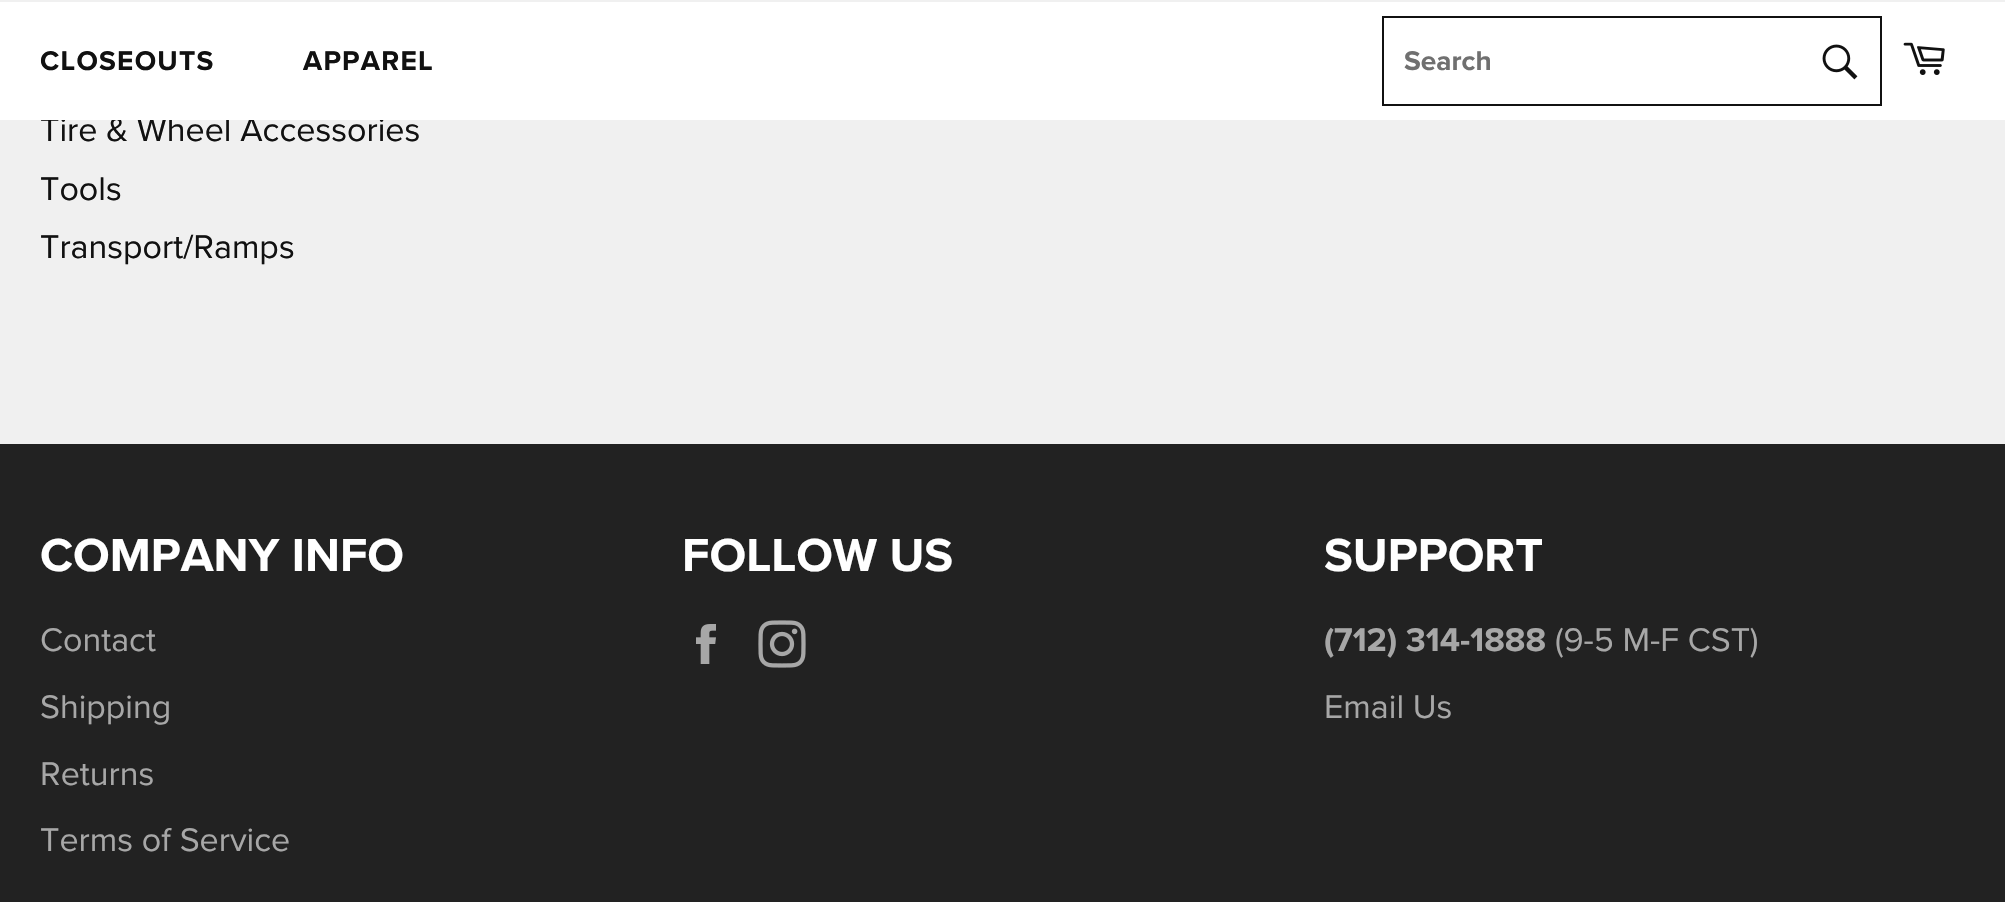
void draw(SkCanvas* canvas) {
	SkPaint fill;
	fill.setAntiAlias(true);
	auto makeFont = [&](const char* family, int weight, float size, bool italic = false) {
		SkFontStyle style(weight, SkFontStyle::kNormal_Width,
			italic ? SkFontStyle::kItalic_Slant : SkFontStyle::kUpright_Slant);
		SkFont result(fontMgr->matchFamilyStyle(family, style), size);
		result.setSubpixel(true);
		return result;
	};
	auto text = [&](const char* s, float x, float y, const SkFont& font) {
		canvas->drawString(s, x, y, font, fill);
	};
	auto spacedText = [&](const char* s, float x, float y, const SkFont& font, const SkPaint& ink, float letter, float word) {
		std::vector<SkGlyphID> glyphs(font.countText(s, strlen(s), SkTextEncoding::kUTF8));
		std::vector<float> xs(glyphs.size());
		font.textToGlyphs(s, strlen(s), SkTextEncoding::kUTF8, glyphs);
		font.getXPos(glyphs, xs, x);
		float extra = 0;
		for (size_t i = 0; i < glyphs.size(); i++) {
			xs[i] += extra;
			extra += letter + word * (glyphs[i] == font.unicharToGlyph(' '));
		}
		canvas->drawTextBlob(SkTextBlob::MakeFromPosHGlyphs(glyphs, xs, y, font), 0, 0, ink);
	};
	auto box = [&](float l, float t, float r, float b) {
		canvas->drawRect(SkRect::MakeLTRB(l, t, r, b), fill);
	};
	auto picture = [&](const char* path, float l, float t, float r, float b) {
		auto image = SkImages::DeferredFromEncodedData(SkData::MakeFromFileName(path));
		canvas->drawImageRect(image, SkRect::MakeLTRB(l, t, r, b), SkSamplingOptions());
	};
	canvas->clear(0xFFF0F0F0);
	fill.setColor(0xFF222222);
	box(0, 444, 2005, 902);
	picture("image2.png", 696, 624, 716, 664);
	picture("image3.png", 758, 620, 806, 668);
	auto font1 = makeFont("Proxima Nova", 400, 34);
	fill.setColor(0xFF111111);
	text("Tire & Wheel Accessories", 40, 141, font1);
	fill.setColor(0xFFFFFFFF);
	box(0, 2, 2005, 120);
	fill.setStyle(SkPaint::kStroke_Style);
	fill.setStrokeWidth(2);
	fill.setColor(0xFF111111);
	canvas->drawRect(SkRect::MakeLTRB(1383, 17, 1881, 105), fill);
	picture("image0.png", 1822, 44, 1858, 80);
	auto font2 = makeFont("Proxima Nova", 700, 28);
	fill.setStyle(SkPaint::kFill_Style);
	fill.setColor(0xFF707070);
	text("Search", 1404, 70, font2);
	picture("image1.png", 1903, 42, 1945, 75);
	fill.setColor(0xFF111111);
	spacedText("APPAREL", 303, 70, font2, fill, 1.25f, 0);
	spacedText("CLOSEOUTS", 40, 70, font2, fill, 1.25f, 0);
	text("Tools", 40, 200, font1);
	text("Transport/Ramps", 40, 258, font1);
	auto font3 = makeFont("Proxima Nova", 700, 48);
	fill.setColor(0xFFFFFFFF);
	text("COMPANY INFO", 40, 571, font3);
	fill.setColor(0xFFA7A7A7);
	text("Contact", 40, 651, font1);
	text("Shipping", 40, 718, font1);
	text("Returns", 40, 785, font1);
	text("Terms of Service", 40, 851, font1);
	fill.setColor(0xFFFFFFFF);
	text("FOLLOW US", 682, 571, font3);
	text("SUPPORT", 1324, 571, font3);
	auto font4 = makeFont("Proxima Nova", 700, 34);
	fill.setColor(0xFFA7A7A7);
	text("(712) 314-1888", 1324, 651, font4);
	text("(9-5 M-F CST)", 1555, 651, font1);
	text("Email Us", 1324, 718, font1);
}
